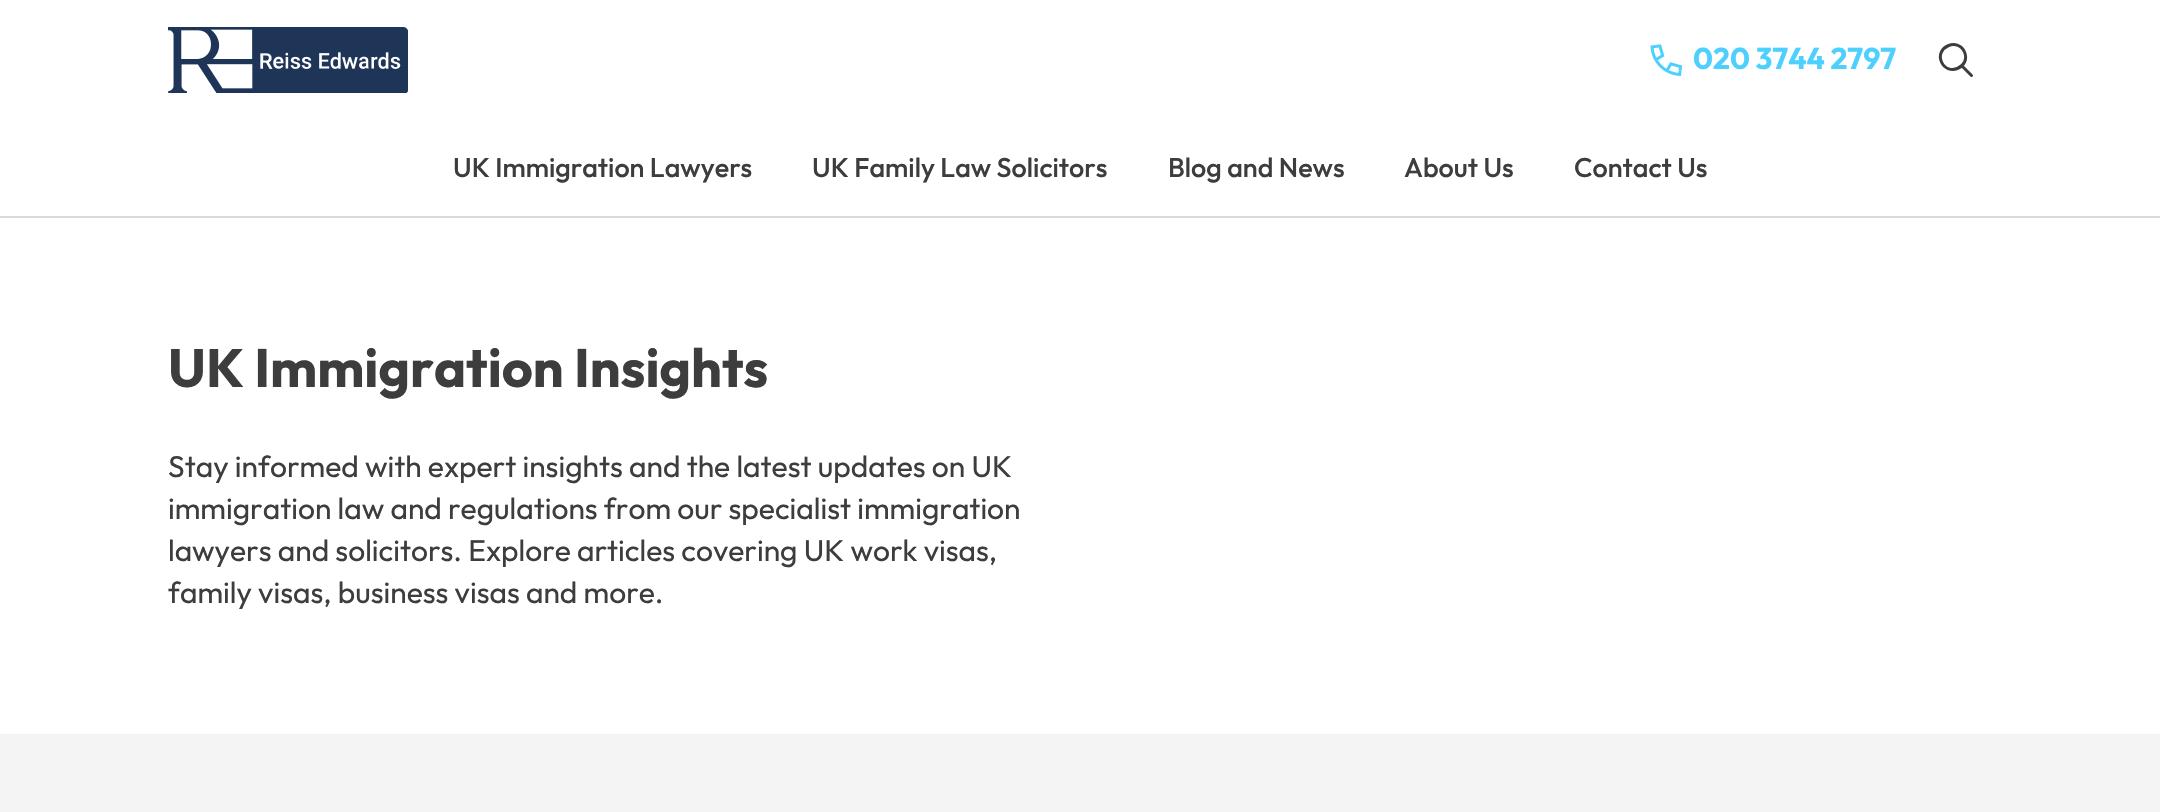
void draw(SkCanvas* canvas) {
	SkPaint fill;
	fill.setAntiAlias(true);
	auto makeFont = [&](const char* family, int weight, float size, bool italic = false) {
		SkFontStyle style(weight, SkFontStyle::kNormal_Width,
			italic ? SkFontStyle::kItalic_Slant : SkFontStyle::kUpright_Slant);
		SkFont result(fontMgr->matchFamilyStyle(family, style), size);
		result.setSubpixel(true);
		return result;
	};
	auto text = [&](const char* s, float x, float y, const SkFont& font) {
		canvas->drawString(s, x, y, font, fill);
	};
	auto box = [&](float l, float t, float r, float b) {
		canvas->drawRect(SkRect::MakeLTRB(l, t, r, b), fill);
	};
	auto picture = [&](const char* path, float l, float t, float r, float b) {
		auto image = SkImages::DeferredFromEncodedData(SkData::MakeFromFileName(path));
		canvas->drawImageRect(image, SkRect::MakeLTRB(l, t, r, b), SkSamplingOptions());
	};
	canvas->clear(0xFFFFFFFF);
	fill.setColor(0xFFDBD9D2);
	box(0, 216, 2160, 218);
	picture("image0.png", 168, 27, 408, 93);
	picture("image1.png", 1650, 44, 1683, 76);
	fill.setStyle(SkPaint::kStroke_Style);
	fill.setStrokeWidth(3);
	fill.setStrokeCap(SkPaint::kRound_Cap);
	fill.setStrokeJoin(SkPaint::kRound_Join);
	fill.setColor(0xFF3D3D3D);
	canvas->drawPath(SkPathBuilder().moveTo(1941.5f, 62).cubicTo(1948, 77, 1971, 67, 1964.5f, 52).cubicTo(1958, 37, 1935, 47, 1941.5f, 62).moveTo(1962, 66).lineTo(1971.5f, 75.5f).detach(), fill);
	fill.setStyle(SkPaint::kFill_Style);
	fill.setColor(0xFFF4F4F4);
	box(0, 734, 2160, 812);
	auto font1 = makeFont("Outfit", 700, 30);
	fill.setColor(0xFF4ED0FF);
	text("020 3744 2797", 1693, 69, font1);
	auto font2 = makeFont("Outfit", 500, 27);
	fill.setColor(0xFF3D3D3D);
	text("UK Immigration Lawyers", 453, 177, font2);
	text("UK Family Law Solicitors", 812, 177, font2);
	text("Blog and News", 1168, 177, font2);
	text("About Us", 1404, 177, font2);
	text("Contact Us", 1574, 177, font2);
	auto font3 = makeFont("Outfit", 700, 54);
	text("UK Immigration Insights", 168, 387, font3);
	auto font4 = makeFont("Outfit", 400, 30);
	text("Stay informed with expert insights and the latest updates on UK", 168, 477, font4);
	text("immigration law and regulations from our specialist immigration", 168, 519, font4);
	text("lawyers and solicitors. Explore articles covering UK work visas,", 168, 561, font4);
	text("family visas, business visas and more.", 168, 603, font4);
}
